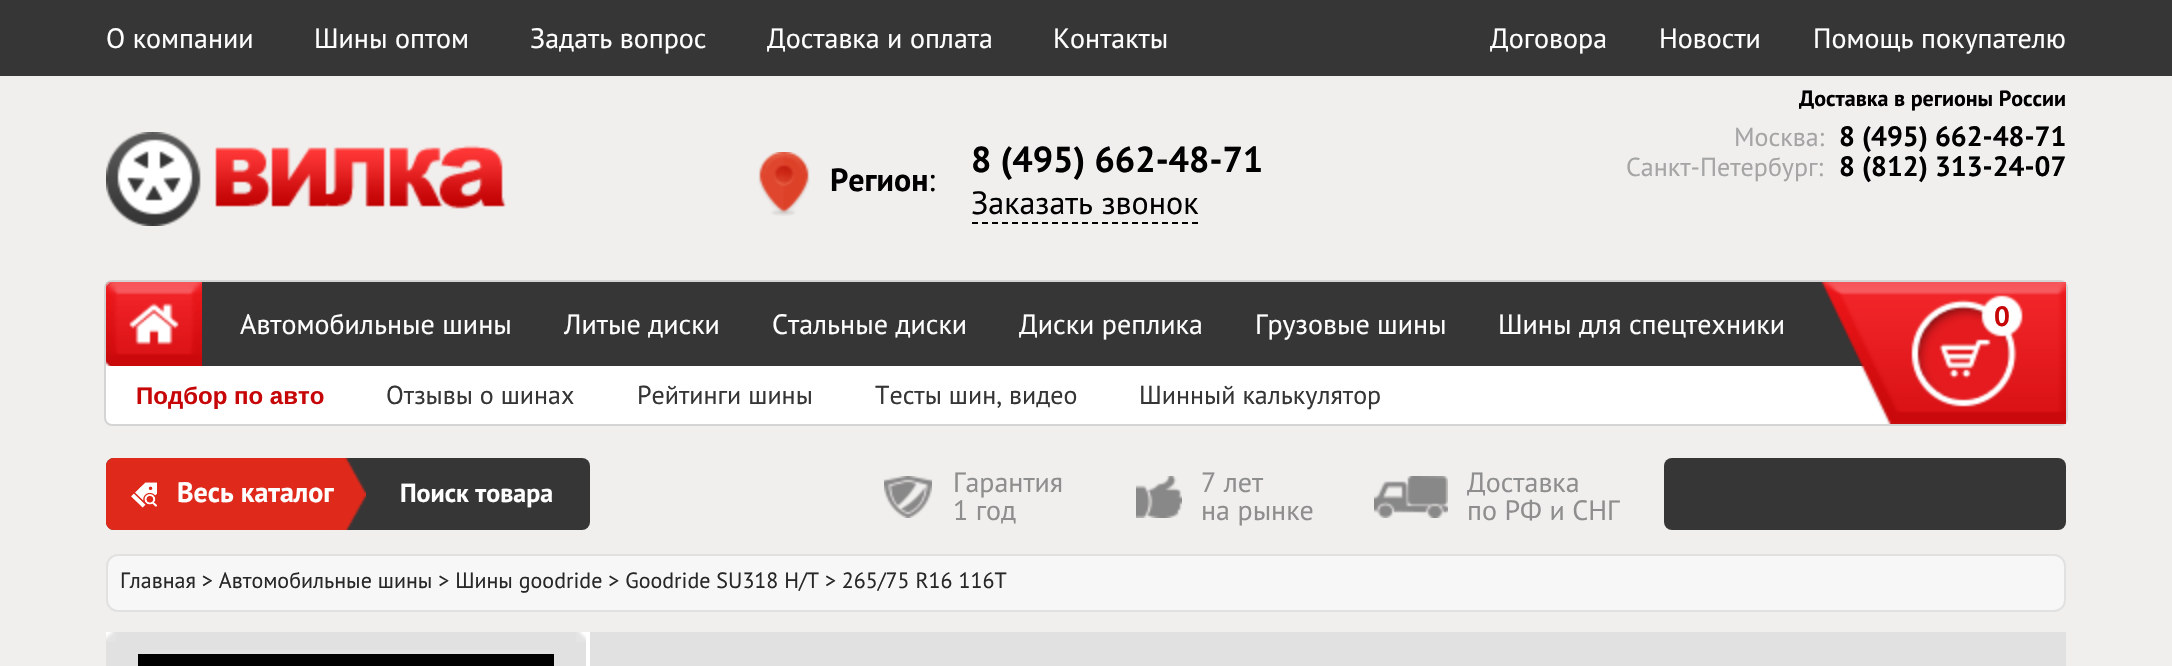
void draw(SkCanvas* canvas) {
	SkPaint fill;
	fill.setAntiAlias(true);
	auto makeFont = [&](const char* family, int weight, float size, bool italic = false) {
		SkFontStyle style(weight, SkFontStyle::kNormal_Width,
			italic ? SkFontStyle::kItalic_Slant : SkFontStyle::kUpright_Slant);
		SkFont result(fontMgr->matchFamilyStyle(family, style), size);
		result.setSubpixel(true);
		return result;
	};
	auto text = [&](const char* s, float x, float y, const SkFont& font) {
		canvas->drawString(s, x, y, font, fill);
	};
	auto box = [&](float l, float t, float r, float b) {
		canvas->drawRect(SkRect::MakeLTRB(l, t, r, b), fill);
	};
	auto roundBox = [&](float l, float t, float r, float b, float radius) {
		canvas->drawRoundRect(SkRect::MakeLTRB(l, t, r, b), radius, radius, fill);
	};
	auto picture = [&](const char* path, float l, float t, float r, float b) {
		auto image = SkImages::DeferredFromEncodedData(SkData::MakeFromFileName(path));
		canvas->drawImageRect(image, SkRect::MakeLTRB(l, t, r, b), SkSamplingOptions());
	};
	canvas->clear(0xFFF1EFED);
	fill.setColor(0xFF363636);
	box(0, 0, 2172, 76);
	picture("image0.png", 106, 132, 201, 226);
	picture("image1.png", 215, 145, 506, 209);
	picture("image2.png", 758, 152, 810, 216);
	fill.setStyle(SkPaint::kStroke_Style);
	fill.setStrokeWidth(2);
	fill.setColor(0xFF000000);
	fill.setPathEffect(SkDashPathEffect::Make({{6, 4}}, 0));
	canvas->drawPath(SkPathBuilder().moveTo(972, 223).lineTo(1198, 223).detach(), fill);
	fill.setPathEffect(nullptr);
	fill.setStyle(SkPaint::kFill_Style);
	fill.setColor(0xFFFFFFFF);
	canvas->drawRoundRect(SkRect::MakeLTRB(105, 281, 2067, 425), 7, 7, fill);
	fill.setStyle(SkPaint::kStroke_Style);
	fill.setColor(0xFFD4D4D4);
	canvas->drawRoundRect(SkRect::MakeLTRB(105, 281, 2067, 425), 7, 7, fill);
	fill.setStyle(SkPaint::kFill_Style);
	fill.setColor(0xFF363636);
	canvas->drawPath(SkPathBuilder().moveTo(114, 282).lineTo(2054, 282).cubicTo(2060.5f, 282, 2066, 287.5f, 2066, 294).lineTo(2066, 366).lineTo(114, 366).cubicTo(109.5f, 366, 106, 362.5f, 106, 358).lineTo(106, 290).cubicTo(106, 285.5f, 109.5f, 282, 114, 282).close().detach(), fill);
	picture("image3.png", 106, 282, 202, 366);
	picture("image4.png", 1821, 282, 2066, 424);
	roundBox(106, 458, 590, 530, 8);
	fill.setColor(0xFFDF291B);
	canvas->drawPath(SkPathBuilder().moveTo(114, 458).lineTo(334, 458).lineTo(334, 530).lineTo(114, 530).cubicTo(109.5f, 530, 106, 526.5f, 106, 522).lineTo(106, 466).cubicTo(106, 461.5f, 109.5f, 458, 114, 458).close().detach(), fill);
	picture("image5.png", 131, 482, 157, 508);
	picture("image7.png", 884, 476, 932, 518);
	picture("image8.png", 1136, 476, 1182, 518);
	picture("image9.png", 1374, 476, 1448, 518);
	fill.setColor(0xFF363636);
	roundBox(1664, 458, 2066, 530, 8);
	fill.setColor(0xFFF7F7F7);
	canvas->drawRoundRect(SkRect::MakeLTRB(107, 555, 2065, 611), 11, 11, fill);
	fill.setStyle(SkPaint::kStroke_Style);
	fill.setColor(0xFFE1E1E1);
	canvas->drawRoundRect(SkRect::MakeLTRB(107, 555, 2065, 611), 11, 11, fill);
	fill.setStyle(SkPaint::kFill_Style);
	fill.setColor(0xFFFFFFFF);
	box(586, 632, 590, 666);
	fill.setStyle(SkPaint::kStroke_Style);
	fill.setColor(0xFFE1E1E1);
	canvas->drawRect(SkRect::MakeLTRB(107, 633, 585, 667), fill);
	fill.setStyle(SkPaint::kFill_Style);
	box(108, 634, 584, 666);
	fill.setColor(0xFF000000);
	box(138, 654, 554, 666);
	picture("image10.png", 106, 632, 116, 642);
	picture("image11.png", 576, 632, 586, 642);
	fill.setStyle(SkPaint::kStroke_Style);
	fill.setColor(0xFFE1E1E1);
	canvas->drawRect(SkRect::MakeLTRB(591, 633, 2065, 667), fill);
	fill.setStyle(SkPaint::kFill_Style);
	box(592, 634, 2064, 666);
	auto font1 = makeFont("PT Sans", 400, 28);
	fill.setColor(0xFFFFFFFF);
	text("О компании", 106, 48, font1);
	text("Шины оптом", 314, 48, font1);
	text("Задать вопрос", 530, 48, font1);
	text("Доставка и оплата", 767, 48, font1);
	text("Контакты", 1053, 48, font1);
	text("Договора", 1490, 48, font1);
	text("Новости", 1659, 48, font1);
	text("Помощь покупателю", 1813, 48, font1);
	auto font2 = makeFont("PT Sans", 700, 32);
	fill.setColor(0xFF000000);
	text("Регион", 830, 191, font2);
	auto font3 = makeFont("PT Sans", 400, 32);
	text(":", 928, 191, font3);
	auto font4 = makeFont("PT Sans", 700, 36);
	text("8 (495) 662-48-71", 971, 172, font4);
	text("Заказать звонок", 971, 214, font3);
	auto font5 = makeFont("PT Sans", 700, 22);
	text("Доставка в регионы России", 1799, 106, font5);
	auto font6 = makeFont("PT Sans", 400, 26);
	fill.setColor(0xFFA5A5A5);
	text("Москва:", 1734, 146, font6);
	auto font7 = makeFont("PT Sans", 700, 28);
	fill.setColor(0xFF000000);
	text("8 (495) 662-48-71", 1839, 146, font7);
	fill.setColor(0xFFA5A5A5);
	text("Санкт-Петербург:", 1626, 176, font6);
	fill.setColor(0xFF000000);
	text("8 (812) 313-24-07", 1839, 176, font7);
	fill.setColor(0xFFFFFFFF);
	text("Автомобильные шины", 240, 334, font1);
	text("Литые диски", 564, 334, font1);
	text("Стальные диски", 772, 334, font1);
	text("Диски реплика", 1019, 334, font1);
	text("Грузовые шины", 1255, 334, font1);
	text("Шины для спецтехники", 1498, 334, font1);
	fill.setColor(0xFFC60607);
	text("0", 1994, 326, font7);
	auto font8 = makeFont("Liberation Sans", 700, 24);
	text("Подбор по авто", 136, 404, font8);
	fill.setColor(0xFF353535);
	text("Отзывы о шинах", 386, 404, font6);
	text("Рейтинги шины", 637, 404, font6);
	text("Тесты шин, видео", 875, 404, font6);
	text("Шинный калькулятор", 1139, 404, font6);
	fill.setColor(0xFFFFFFFF);
	text("Весь каталог", 177, 502, font7);
	picture("image6.png", 334, 458, 366, 530);
	auto font9 = makeFont("PT Sans", 700, 26);
	text("Поиск товара", 400, 502, font9);
	fill.setColor(0xFF8E8E8E);
	text("Гарантия", 953, 492, font1);
	text("1 год", 953, 520, font1);
	text("7 лет", 1201, 492, font1);
	text("на рынке", 1201, 520, font1);
	text("Доставка", 1467, 492, font1);
	text("по РФ и СНГ", 1467, 520, font1);
	auto font10 = makeFont("PT Sans", 400, 22);
	fill.setColor(0xFF282828);
	text("Главная > Автомобильные шины > Шины goodride > Goodride SU318 H/T > 265/75 R16 116T", 120, 588, font10);
}
